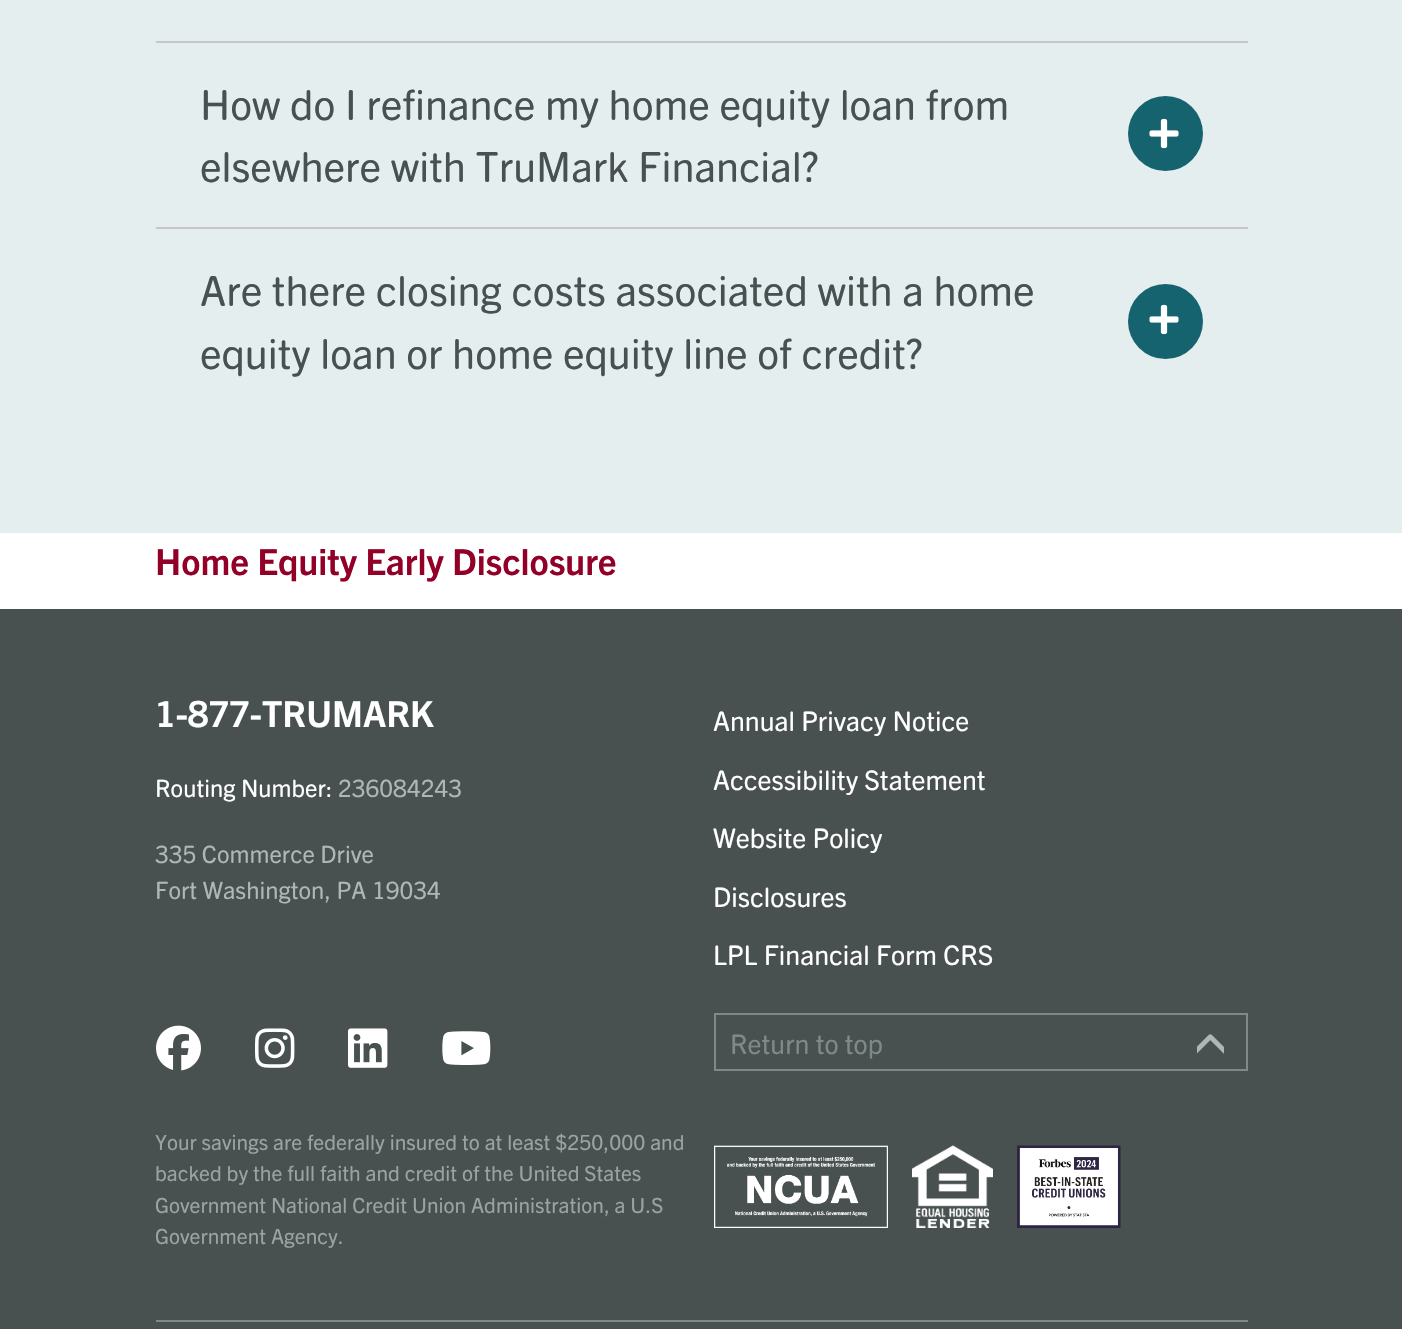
void draw(SkCanvas* canvas) {
	SkPaint fill;
	fill.setAntiAlias(true);
	auto makeFont = [&](const char* family, int weight, float size, bool italic = false) {
		SkFontStyle style(weight, SkFontStyle::kNormal_Width,
			italic ? SkFontStyle::kItalic_Slant : SkFontStyle::kUpright_Slant);
		SkFont result(fontMgr->matchFamilyStyle(family, style), size);
		result.setSubpixel(true);
		return result;
	};
	auto text = [&](const char* s, float x, float y, const SkFont& font) {
		canvas->drawString(s, x, y, font, fill);
	};
	auto box = [&](float l, float t, float r, float b) {
		canvas->drawRect(SkRect::MakeLTRB(l, t, r, b), fill);
	};
	auto picture = [&](const char* path, float l, float t, float r, float b) {
		auto image = SkImages::DeferredFromEncodedData(SkData::MakeFromFileName(path));
		canvas->drawImageRect(image, SkRect::MakeLTRB(l, t, r, b), SkSamplingOptions());
	};
	canvas->clear(0xFFFFFFFF);
	fill.setColor(0xFFE4EEEE);
	box(0, 0, 1402, 533);
	fill.setColor(0xFFC7C6C6);
	box(156, 41, 1248, 43);
	box(156, 227, 1248, 229);
	fill.setColor(0xFF15636E);
	canvas->drawCircle(1165.5f, 133.5f, 37.5f, fill);
	picture("image0.png", 1149, 118, 1179, 149);
	canvas->drawCircle(1165.5f, 321.5f, 37.5f, fill);
	picture("image0.png", 1149, 304, 1179, 335);
	fill.setColor(0xFF485050);
	box(0, 609, 1402, 1329);
	fill.setStyle(SkPaint::kStroke_Style);
	fill.setStrokeWidth(2);
	fill.setColor(0xFF7F8989);
	canvas->drawRect(SkRect::MakeLTRB(715, 1014, 1247, 1070), fill);
	picture("image1.png", 1197, 1034, 1224, 1054);
	picture("image2.png", 714, 1145, 888, 1228);
	picture("image3.png", 912, 1145, 993, 1228);
	picture("image4.png", 1017, 1145, 1121, 1228);
	picture("image5.png", 156, 1025, 201, 1071);
	picture("image6.png", 255, 1028, 295, 1068);
	picture("image7.png", 348, 1028, 388, 1068);
	picture("image8.png", 442, 1031, 491, 1065);
	fill.setStyle(SkPaint::kFill_Style);
	box(156, 1320, 1248, 1322);
	auto font1 = makeFont("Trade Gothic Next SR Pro", 400, 41.7f);
	fill.setColor(0xFF485050);
	text("How do I refinance my home equity loan from", 200, 120, font1);
	text("elsewhere with TruMark Financial?", 200, 182, font1);
	text("Are there closing costs associated with a home", 200, 306, font1);
	text("equity loan or home equity line of credit?", 200, 369, font1);
	auto font2 = makeFont("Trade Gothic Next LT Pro", 700, 36);
	fill.setColor(0xFF930027);
	text("Home Equity Early Disclosure", 155, 575, font2);
	fill.setColor(0xFFFFFFFF);
	text("1-877-TRUMARK", 155, 727, font2);
	auto font3 = makeFont("Trade Gothic Next SR Pro", 400, 24);
	text("Routing Number:", 155, 797, font3);
	fill.setColor(0xFFAEB6B6);
	text("236084243", 338, 797, font3);
	text("335 Commerce Drive", 155, 863, font3);
	text("Fort Washington, PA 19034", 155, 899, font3);
	auto font4 = makeFont("Trade Gothic Next SR Pro", 400, 27);
	fill.setColor(0xFFFFFFFF);
	text("Annual Privacy Notice", 713, 731, font4);
	text("Accessibility Statement", 713, 790, font4);
	text("Website Policy", 713, 848, font4);
	text("Disclosures", 713, 907, font4);
	text("LPL Financial Form CRS", 713, 965, font4);
	fill.setColor(0xFF7F8989);
	text("Return to top", 730, 1054, font4);
	auto font5 = makeFont("Trade Gothic Next SR Pro", 400, 21);
	fill.setColor(0xFF99A3A3);
	text("Your savings are federally insured to at least $250,000 and", 155, 1150, font5);
	text("backed by the full faith and credit of the United States", 155, 1181, font5);
	text("Government National Credit Union Administration, a U.S", 155, 1213, font5);
	text("Government Agency.", 155, 1244, font5);
}
